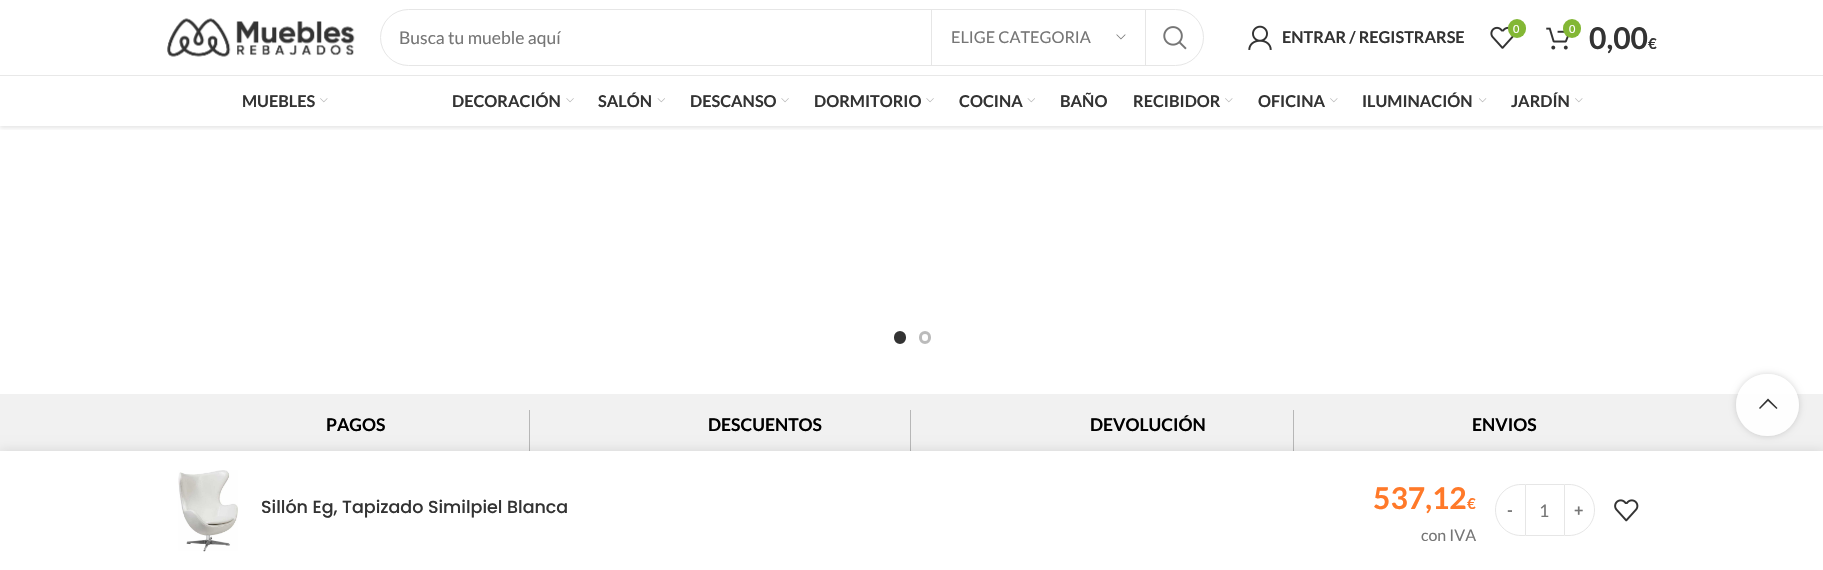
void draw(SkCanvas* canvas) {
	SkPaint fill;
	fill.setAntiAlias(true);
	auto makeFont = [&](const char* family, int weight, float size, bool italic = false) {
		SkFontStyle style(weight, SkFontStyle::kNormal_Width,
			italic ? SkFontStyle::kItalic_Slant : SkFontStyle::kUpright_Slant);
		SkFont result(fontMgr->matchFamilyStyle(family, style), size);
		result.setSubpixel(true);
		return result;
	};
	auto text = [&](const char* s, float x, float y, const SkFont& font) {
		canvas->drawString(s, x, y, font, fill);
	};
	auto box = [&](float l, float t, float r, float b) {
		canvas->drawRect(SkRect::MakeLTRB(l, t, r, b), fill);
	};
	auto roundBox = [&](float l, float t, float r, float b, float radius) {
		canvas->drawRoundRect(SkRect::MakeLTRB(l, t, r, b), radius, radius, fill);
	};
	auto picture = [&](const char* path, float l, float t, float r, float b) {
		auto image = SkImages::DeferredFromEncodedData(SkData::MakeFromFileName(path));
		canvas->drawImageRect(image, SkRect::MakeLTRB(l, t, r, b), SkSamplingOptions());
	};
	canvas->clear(0xFFFFFFFF);
	canvas->save();
	canvas->clipRect(SkRect::MakeLTRB(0, 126, 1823, 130));
	fill.setColor(0x1A000000);
	fill.setMaskFilter(SkMaskFilter::MakeBlur(kNormal_SkBlurStyle, 2));
	canvas->drawRect(SkRect::MakeLTRB(0, 1, 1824, 128), fill);
	fill.setMaskFilter(nullptr);
	canvas->restore();
	fill.setColor(0xFFE8E8E8);
	box(0, 75, 1823, 76);
	picture("image0.png", 167, 18, 355, 57);
	fill.setStyle(SkPaint::kStroke_Style);
	fill.setStrokeWidth(1);
	fill.setColor(0xFFE6E6E6);
	canvas->drawRoundRect(SkRect::MakeLTRB(380.5f, 9.5f, 1203.5f, 65.5f), 28, 28, fill);
	fill.setStyle(SkPaint::kFill_Style);
	box(1145, 10, 1146, 65);
	box(931, 10, 932, 65);
	picture("image1.png", 1116, 34, 1126, 40);
	picture("image2.png", 1163, 26, 1187, 50);
	picture("image3.png", 1248, 25, 1272, 50);
	picture("image4.png", 1490, 26, 1514, 49);
	fill.setColor(0xFF83B735);
	roundBox(1508, 19, 1526, 38, 9);
	picture("image5.png", 1546, 27, 1569, 50);
	roundBox(1563, 19, 1581, 38, 9);
	picture("image6.png", 320, 98, 328, 103);
	picture("image7.png", 566, 98, 574, 103);
	picture("image8.png", 657, 98, 665, 103);
	picture("image7.png", 781, 98, 789, 103);
	picture("image7.png", 926, 98, 934, 103);
	picture("image8.png", 1027, 98, 1035, 103);
	picture("image6.png", 1225, 98, 1233, 103);
	picture("image6.png", 1330, 98, 1338, 103);
	picture("image9.png", 1479, 98, 1487, 103);
	picture("image6.png", 1575, 98, 1583, 103);
	fill.setColor(0xFF333333);
	canvas->drawRoundRect(SkRect::MakeLTRB(895.5f, 332.5f, 904.5f, 342.5f), 4.5f, 4.5f, fill);
	fill.setStyle(SkPaint::kStroke_Style);
	fill.setStrokeWidth(3);
	canvas->drawRoundRect(SkRect::MakeLTRB(895.5f, 332.5f, 904.5f, 342.5f), 4.5f, 4.5f, fill);
	fill.setColor(0xFFBBBBBB);
	canvas->drawRoundRect(SkRect::MakeLTRB(920.5f, 332.5f, 929.5f, 342.5f), 4.5f, 4.5f, fill);
	fill.setStyle(SkPaint::kFill_Style);
	fill.setColor(0xFFF1F1F1);
	box(0, 394, 1823, 451);
	fill.setColor(0xFFB7B7B7);
	box(529, 410, 530, 451);
	box(910, 410, 911, 451);
	box(1293, 410, 1294, 451);
	canvas->save();
	canvas->clipPath(SkPathBuilder(SkPathFillType::kEvenOdd).moveTo(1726, 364).lineTo(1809, 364).lineTo(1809, 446).lineTo(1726, 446).close().moveTo(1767, 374).lineTo(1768, 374).cubicTo(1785, 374, 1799, 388, 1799, 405).cubicTo(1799, 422, 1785, 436, 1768, 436).lineTo(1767, 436).cubicTo(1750, 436, 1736, 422, 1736, 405).cubicTo(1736, 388, 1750, 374, 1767, 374).close().detach(), true);
	fill.setColor(0x2B000000);
	fill.setMaskFilter(SkMaskFilter::MakeBlur(kNormal_SkBlurStyle, 3));
	canvas->drawRoundRect(SkRect::MakeLTRB(1736, 374, 1799, 436), 31, 31, fill);
	fill.setMaskFilter(nullptr);
	canvas->restore();
	fill.setColor(0x1F000000);
	fill.setMaskFilter(SkMaskFilter::MakeBlur(kNormal_SkBlurStyle, 5.5f));
	canvas->drawRect(SkRect::MakeLTRB(0, 451, 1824, 570), fill);
	fill.setMaskFilter(nullptr);
	fill.setColor(0xE6FFFFFF);
	roundBox(1736, 374, 1799, 436, 31);
	fill.setColor(0xFF333333);
	canvas->drawPath(SkPathBuilder().moveTo(1776.5f, 409).lineTo(1777.5f, 408).lineTo(1768, 398.5f).lineTo(1759, 408).lineTo(1760, 409).lineTo(1768, 401).close().detach(), fill);
	fill.setColor(0xFFFFFFFF);
	box(0, 451, 1823, 570);
	picture("image10.png", 178, 470, 238, 552);
	fill.setStyle(SkPaint::kStroke_Style);
	fill.setStrokeWidth(1);
	fill.setColor(0xFFE6E6E6);
	canvas->drawPath(SkPathBuilder().moveTo(1521, 484.5f).lineTo(1525.5f, 484.5f).lineTo(1525.5f, 535.5f).lineTo(1521, 535.5f).cubicTo(1507, 535.5f, 1495.5f, 524, 1495.5f, 510).cubicTo(1495.5f, 496, 1507, 484.5f, 1521, 484.5f).close().detach(), fill);
	fill.setStyle(SkPaint::kFill_Style);
	box(1526, 484, 1564, 485);
	box(1526, 535, 1564, 536);
	fill.setStyle(SkPaint::kStroke_Style);
	canvas->drawPath(SkPathBuilder().moveTo(1564.5f, 484.5f).lineTo(1569, 484.5f).cubicTo(1583, 484.5f, 1594.5f, 496, 1594.5f, 510).cubicTo(1594.5f, 524, 1583, 535.5f, 1569, 535.5f).lineTo(1564.5f, 535.5f).close().detach(), fill);
	picture("image11.png", 1614, 499, 1639, 522);
	auto font1 = makeFont("Lato", 400, 17.5f);
	fill.setStyle(SkPaint::kFill_Style);
	fill.setColor(0xFF767676);
	text("Busca tu mueble aquí", 399, 44, font1);
	auto font2 = makeFont("Lato", 400, 16.25f);
	text("ELIGE CATEGORIA", 951, 43, font2);
	auto font3 = makeFont("Lato", 700, 16.25f);
	fill.setColor(0xFF333333);
	text("ENTRAR / REGISTRARSE", 1282, 43, font3);
	auto font4 = makeFont("Lato", 400, 11);
	fill.setColor(0xFFFFFFFF);
	text("0", 1513, 33, font4);
	text("0", 1569, 33, font4);
	auto font5 = makeFont("Lato", 700, 30);
	fill.setColor(0xFF333333);
	text("0,00", 1589, 49, font5);
	auto font6 = makeFont("Lato", 700, 15);
	text("€", 1648, 49, font6);
	text("MUEBLES", 242, 107, font3);
	text("DECORACIÓN", 452, 107, font3);
	text("SALÓN", 598, 107, font3);
	text("DESCANSO", 690, 107, font3);
	text("DORMITORIO", 814, 107, font3);
	text("COCINA", 959, 107, font3);
	text("BAÑO", 1060, 107, font3);
	text("RECIBIDOR", 1133, 107, font3);
	text("OFICINA", 1258, 107, font3);
	text("ILUMINACIÓN", 1362, 107, font3);
	text("JARDÍN", 1511, 107, font3);
	auto font7 = makeFont("Lato", 700, 17.5f);
	fill.setColor(0xFF000000);
	text("PAGOS", 326, 431, font7);
	text("DESCUENTOS", 708, 431, font7);
	text("DEVOLUCIÓN", 1090, 431, font7);
	text("ENVIOS", 1472, 431, font7);
	auto font8 = makeFont("Poppins", 500, 17.5f);
	fill.setColor(0xFF333333);
	text("Sillón Eg, Tapizado Similpiel Blanca", 261, 513, font8);
	fill.setColor(0xFFFF7929);
	text("537,12", 1373, 509, font5);
	text("€", 1467, 509, font6);
	auto font9 = makeFont("Lato", 400, 16);
	fill.setColor(0xFF767676);
	text("con IVA", 1421, 541, font9);
	text("-", 1507, 516, font3);
	text("1", 1539, 517, font1);
	text("+", 1574, 516, font3);
}
